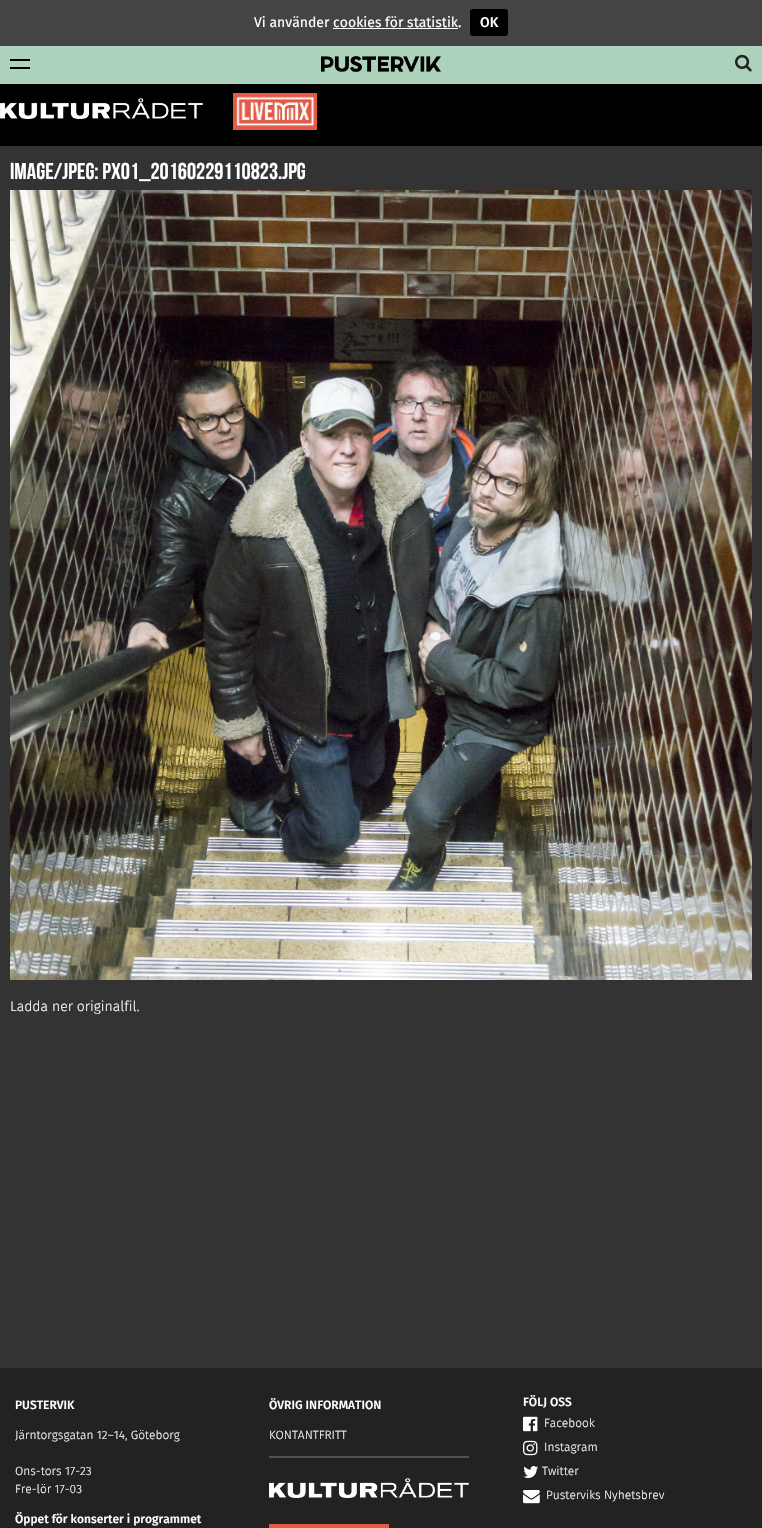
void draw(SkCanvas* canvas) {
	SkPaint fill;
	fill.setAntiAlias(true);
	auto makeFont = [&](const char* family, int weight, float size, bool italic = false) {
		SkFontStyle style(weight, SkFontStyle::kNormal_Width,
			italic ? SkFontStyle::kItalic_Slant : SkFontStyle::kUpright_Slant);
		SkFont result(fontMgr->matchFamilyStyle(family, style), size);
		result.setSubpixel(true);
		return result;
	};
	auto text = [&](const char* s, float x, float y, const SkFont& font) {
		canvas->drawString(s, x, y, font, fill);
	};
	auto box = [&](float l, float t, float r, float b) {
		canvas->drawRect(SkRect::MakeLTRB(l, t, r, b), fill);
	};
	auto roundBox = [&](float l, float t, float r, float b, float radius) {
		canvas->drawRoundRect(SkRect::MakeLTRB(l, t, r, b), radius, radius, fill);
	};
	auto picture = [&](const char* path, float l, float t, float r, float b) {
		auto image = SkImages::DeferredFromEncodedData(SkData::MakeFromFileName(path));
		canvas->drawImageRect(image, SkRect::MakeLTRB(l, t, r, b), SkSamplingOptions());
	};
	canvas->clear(0xFFFFFFFF);
	{
		const SkColor colors[] = {0xFFAED4BC, 0xFF96AAAC};
		const float stops[] = {0, 1};
		const SkPoint ends[] = {{381, 0}, {381, 1528}};
		fill.setShader(SkGradientShader::MakeLinear(ends, colors, stops, 2, SkTileMode::kClamp));
		fill.setAlpha(255);
	}
	box(0, 46, 762, 84);
	fill.setShader(nullptr);
	fill.setColor(0xFF444444);
	box(0, 0, 762, 46);
	fill.setColor(0xFF000000);
	roundBox(470, 9, 508, 36, 3);
	fill.setColor(0xFFFFFFFF);
	box(333, 28, 458, 29);
	fill.setColor(0xFF000000);
	box(0, 84, 762, 146);
	box(10, 59, 30, 61);
	box(10, 67, 30, 69);
	picture("image0.png", 321, 56, 441, 72);
	picture("image1.png", 735, 54, 752, 72);
	picture("image2.png", 0, 98, 203, 119);
	picture("image3.png", 233, 93, 317, 130);
	fill.setColor(0xFF333333);
	box(0, 146, 762, 1368);
	picture("image4.png", 10, 190, 752, 980);
	fill.setColor(0xFF222222);
	box(0, 1368, 762, 1528);
	fill.setColor(0xFF515151);
	box(269, 1456, 469, 1458);
	picture("image5.png", 269, 1478, 469, 1498);
	fill.setColor(0xFFE55945);
	box(269, 1524, 389, 1528);
	picture("image6.png", 523, 1416, 538, 1432);
	picture("image7.png", 523, 1440, 538, 1456);
	picture("image8.png", 523, 1466, 538, 1478);
	picture("image9.png", 523, 1490, 540, 1504);
	auto font1 = makeFont("Fira Sans", 400, 14);
	fill.setColor(0xFFFFFFFF);
	text("Vi använder cookies för statistik.", 254, 27, font1);
	auto font2 = makeFont("Fira Sans", 500, 14);
	text("OK", 480, 27, font2);
	auto font3 = makeFont("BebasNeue", 400, 23);
	text("image/jpeg: PX01_20160229110823.jpg", 10, 179, font3);
	auto font4 = makeFont("Fira Sans", 300, 14);
	text("Ladda ner originalfil.", 10, 1011, font4);
	auto font5 = makeFont("Fira Sans", 500, 12);
	text("PUSTERVIK", 15, 1409, font5);
	auto font6 = makeFont("Fira Sans", 300, 12);
	text("Järntorgsgatan 12–14, Göteborg", 15, 1439, font6);
	text("Ons-tors 17-23", 15, 1475, font6);
	text("Fre-lör 17-03", 15, 1493, font6);
	text("Öppet för konserter i programmet", 15, 1523, font5);
	text("ÖVRIG INFORMATION", 269, 1409, font5);
	text("KONTANTFRITT", 269, 1439, font6);
	text("FÖLJ OSS", 523, 1406, font5);
	text("Facebook", 544, 1427, font6);
	text("Instagram", 544, 1451, font6);
	text("Twitter", 542, 1475, font6);
	text("Pusterviks Nyhetsbrev", 546, 1499, font6);
}
